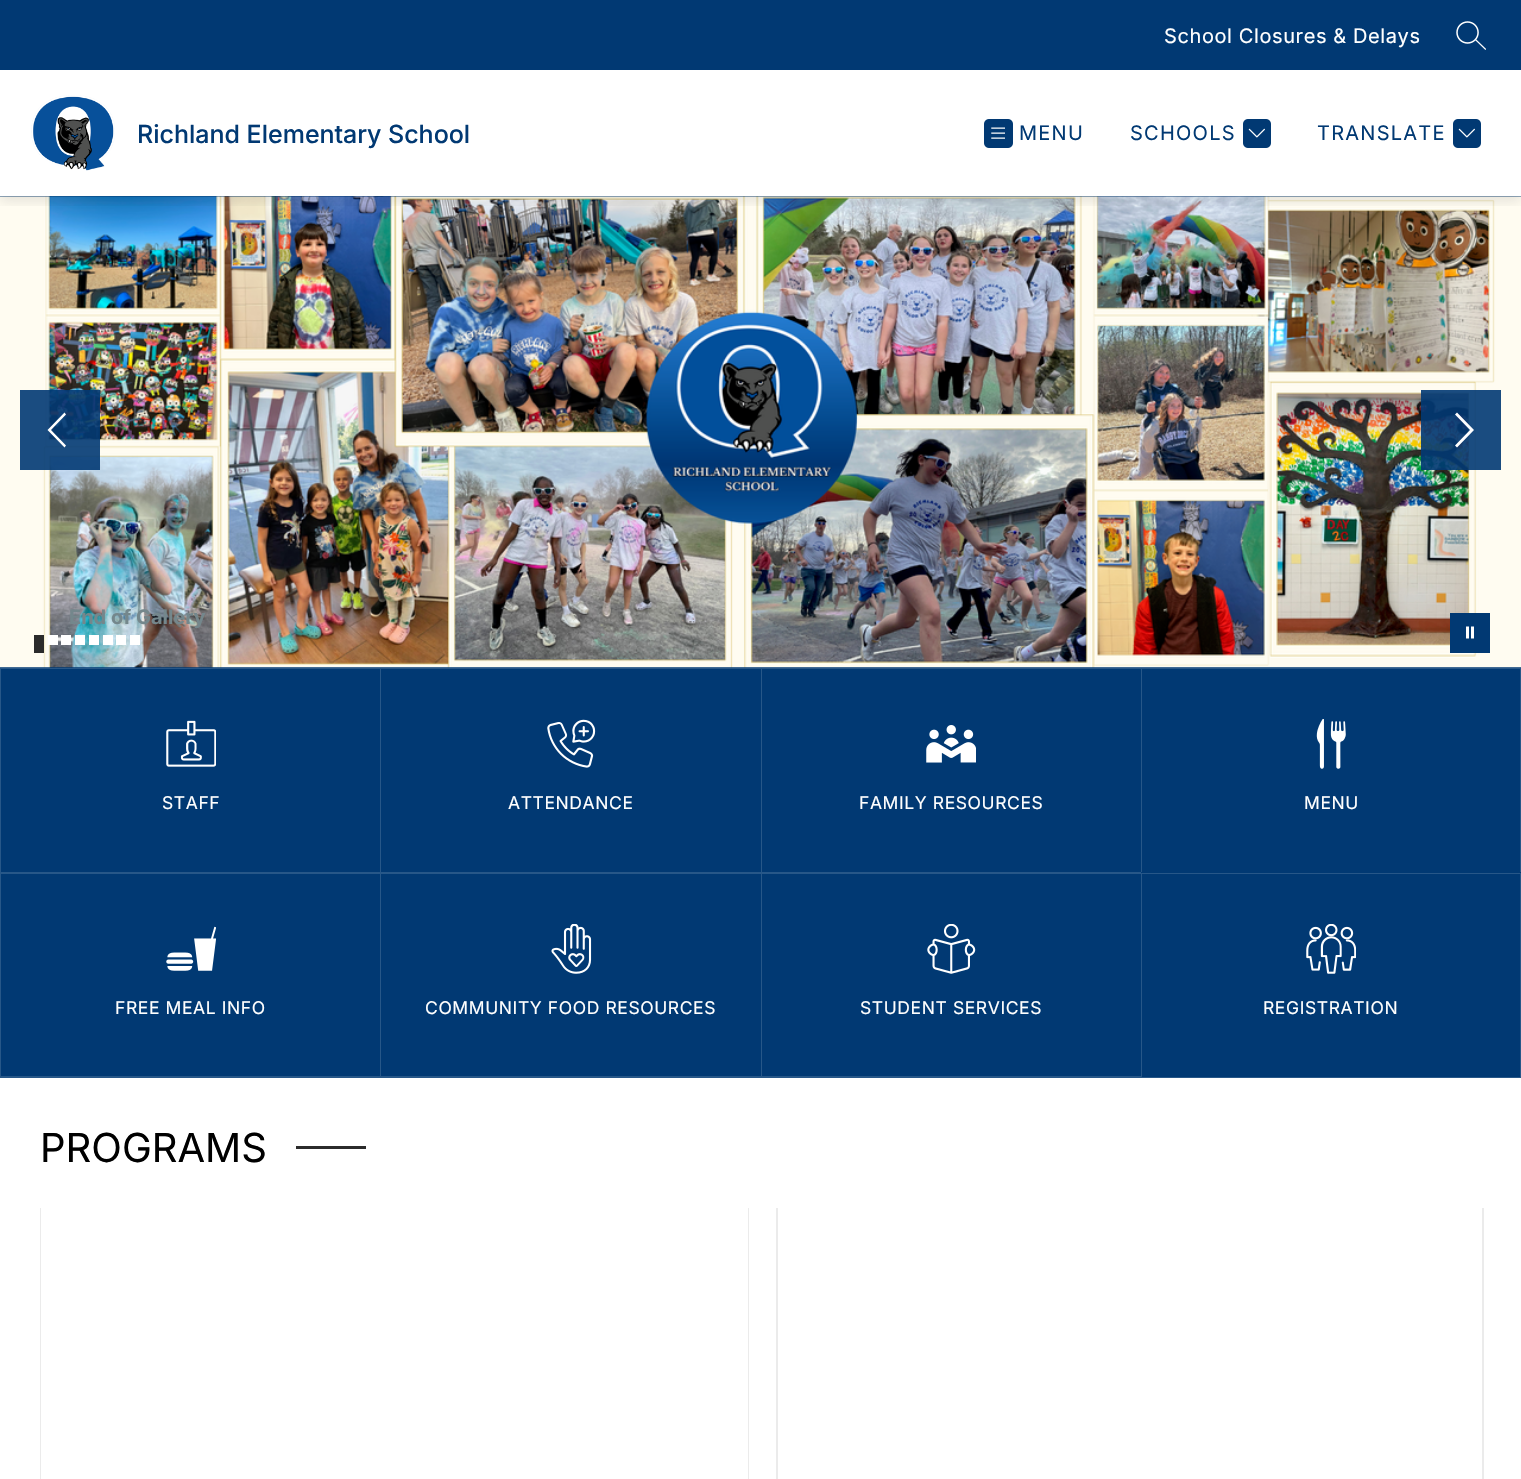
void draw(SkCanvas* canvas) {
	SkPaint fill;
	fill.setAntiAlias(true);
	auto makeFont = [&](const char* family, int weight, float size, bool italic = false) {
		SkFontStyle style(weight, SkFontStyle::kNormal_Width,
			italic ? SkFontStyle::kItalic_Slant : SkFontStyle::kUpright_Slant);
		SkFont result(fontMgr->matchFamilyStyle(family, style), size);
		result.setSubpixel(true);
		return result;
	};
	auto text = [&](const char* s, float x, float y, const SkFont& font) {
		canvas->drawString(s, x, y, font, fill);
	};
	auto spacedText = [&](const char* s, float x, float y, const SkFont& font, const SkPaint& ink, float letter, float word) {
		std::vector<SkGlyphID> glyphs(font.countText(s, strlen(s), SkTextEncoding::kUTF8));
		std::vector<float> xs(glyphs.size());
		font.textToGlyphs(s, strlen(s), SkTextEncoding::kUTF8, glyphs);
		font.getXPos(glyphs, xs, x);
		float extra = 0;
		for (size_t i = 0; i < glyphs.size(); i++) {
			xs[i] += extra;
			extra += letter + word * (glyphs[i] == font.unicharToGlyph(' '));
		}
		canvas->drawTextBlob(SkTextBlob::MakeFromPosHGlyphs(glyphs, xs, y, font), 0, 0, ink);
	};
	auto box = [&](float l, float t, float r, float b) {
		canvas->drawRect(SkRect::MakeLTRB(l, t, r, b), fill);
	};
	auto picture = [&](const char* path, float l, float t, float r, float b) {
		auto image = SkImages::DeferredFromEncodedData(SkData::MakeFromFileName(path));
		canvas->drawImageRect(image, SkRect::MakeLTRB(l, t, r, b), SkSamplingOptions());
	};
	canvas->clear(0xFFFFFFFF);
	fill.setColor(0xFF013973);
	box(0, 196, 1521, 668);
	picture("image4.png", 0, 196, 1521, 668);
	canvas->save();
	canvas->clipRect(SkRect::MakeLTRB(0, 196, 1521, 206));
	fill.setColor(0x1A000000);
	fill.setMaskFilter(SkMaskFilter::MakeBlur(kNormal_SkBlurStyle, 6));
	canvas->drawRect(SkRect::MakeLTRB(0, 5, 1521, 201), fill);
	fill.setMaskFilter(nullptr);
	canvas->restore();
	fill.setColor(0xFF013973);
	box(0, 0, 1521, 70);
	picture("image0.png", 1456, 21, 1486, 50);
	picture("image1.png", 31, 95, 115, 171);
	picture("image2.png", 984, 119, 1013, 148);
	picture("image3.png", 1243, 119, 1271, 148);
	picture("image3.png", 1453, 119, 1481, 148);
	fill.setColor(0xE6013973);
	box(20, 390, 100, 470);
	fill.setColor(0xFFFFFFFF);
	canvas->drawPath(SkPathBuilder(SkPathFillType::kEvenOdd).moveTo(51, 430).lineTo(66, 414.5f).lineTo(64.5f, 412.5f).lineTo(47.5f, 430).lineTo(64.5f, 447.5f).lineTo(66, 445.5f).close().detach(), fill);
	fill.setColor(0xE6013973);
	box(1421, 390, 1501, 470);
	fill.setColor(0xFFFFFFFF);
	canvas->drawPath(SkPathBuilder(SkPathFillType::kEvenOdd).moveTo(1470, 430).lineTo(1455, 445.5f).lineTo(1457, 447.5f).lineTo(1474, 430).lineTo(1457, 412.5f).lineTo(1455, 414.5f).close().detach(), fill);
	fill.setColor(0xFF2B2B2B);
	box(34, 635, 44, 653);
	fill.setColor(0xFFFFFFFF);
	box(48, 635, 58, 645);
	box(61, 635, 71, 645);
	box(75, 635, 85, 645);
	box(89, 635, 99, 645);
	box(103, 635, 113, 645);
	box(116, 635, 126, 645);
	box(130, 635, 140, 645);
	fill.setColor(0xFF013973);
	box(1450, 613, 1490, 653);
	fill.setColor(0xFFFFFFFF);
	canvas->drawPath(SkPathBuilder(SkPathFillType::kEvenOdd).moveTo(1469, 626.5f).lineTo(1466, 626.5f).lineTo(1466, 638.5f).lineTo(1469, 638.5f).close().moveTo(1474, 626.5f).lineTo(1471, 626.5f).lineTo(1471, 638.5f).lineTo(1474, 638.5f).close().detach(), fill);
	fill.setColor(0xFF013973);
	box(0, 668, 1521, 873);
	fill.setColor(0xFF275788);
	canvas->drawPath(SkPathBuilder().moveTo(0, 668).lineTo(380, 668).lineTo(380, 669).lineTo(1, 669).close().detach(), fill);
	fill.setColor(0x26FFFFFF);
	canvas->drawPath(SkPathBuilder().moveTo(0, 872).lineTo(0, 668).lineTo(1, 669).lineTo(1, 872).close().detach(), fill);
	picture("image5.png", 166, 720, 216, 767);
	fill.setColor(0xFF275788);
	canvas->drawPath(SkPathBuilder().moveTo(380, 668).lineTo(761, 668).lineTo(761, 669).lineTo(381, 669).close().detach(), fill);
	fill.setColor(0x26FFFFFF);
	canvas->drawPath(SkPathBuilder().moveTo(380, 872).lineTo(380, 668).lineTo(381, 669).lineTo(381, 872).close().detach(), fill);
	picture("image6.png", 547, 719, 596, 768);
	fill.setColor(0xFF275788);
	canvas->drawPath(SkPathBuilder().moveTo(761, 668).lineTo(1141, 668).lineTo(1141, 669).lineTo(762, 669).close().detach(), fill);
	fill.setColor(0x26FFFFFF);
	canvas->drawPath(SkPathBuilder().moveTo(761, 872).lineTo(761, 668).lineTo(762, 669).lineTo(762, 872).close().detach(), fill);
	picture("image7.png", 926, 725, 976, 763);
	fill.setColor(0xFF275788);
	canvas->drawPath(SkPathBuilder().moveTo(1141, 668).lineTo(1521, 668).lineTo(1520, 669).lineTo(1142, 669).close().detach(), fill);
	fill.setColor(0x26FFFFFF);
	canvas->drawPath(SkPathBuilder().moveTo(1521, 668).lineTo(1521, 872).lineTo(1520, 872).lineTo(1520, 669).close().detach(), fill);
	canvas->drawPath(SkPathBuilder().moveTo(1141, 872).lineTo(1141, 668).lineTo(1142, 669).lineTo(1142, 872).close().detach(), fill);
	picture("image8.png", 1316, 719, 1346, 769);
	fill.setColor(0xFF013973);
	box(0, 873, 1141, 1078);
	fill.setColor(0xFF275788);
	canvas->drawPath(SkPathBuilder().moveTo(0, 872).lineTo(380, 872).lineTo(380, 874).lineTo(1, 874).close().detach(), fill);
	canvas->drawPath(SkPathBuilder().moveTo(380, 1078).lineTo(0, 1078).lineTo(1, 1076).lineTo(380, 1076).close().detach(), fill);
	fill.setColor(0x26FFFFFF);
	canvas->drawPath(SkPathBuilder().moveTo(0, 1078).lineTo(0, 872).lineTo(1, 874).lineTo(1, 1076).close().detach(), fill);
	picture("image9.png", 166, 926, 216, 971);
	fill.setColor(0xFF275788);
	canvas->drawPath(SkPathBuilder().moveTo(380, 872).lineTo(761, 872).lineTo(761, 874).lineTo(381, 874).close().detach(), fill);
	canvas->drawPath(SkPathBuilder().moveTo(761, 1078).lineTo(380, 1078).lineTo(381, 1076).lineTo(761, 1076).close().detach(), fill);
	fill.setColor(0x26FFFFFF);
	canvas->drawPath(SkPathBuilder().moveTo(380, 1078).lineTo(380, 872).lineTo(381, 874).lineTo(381, 1076).close().detach(), fill);
	picture("image10.png", 551, 924, 592, 974);
	fill.setColor(0xFF275788);
	canvas->drawPath(SkPathBuilder().moveTo(761, 872).lineTo(1141, 872).lineTo(1141, 874).lineTo(762, 874).close().detach(), fill);
	canvas->drawPath(SkPathBuilder().moveTo(1141, 1078).lineTo(761, 1078).lineTo(762, 1076).lineTo(1141, 1076).close().detach(), fill);
	fill.setColor(0x26FFFFFF);
	canvas->drawPath(SkPathBuilder().moveTo(761, 1078).lineTo(761, 872).lineTo(762, 874).lineTo(762, 1076).close().detach(), fill);
	picture("image11.png", 927, 924, 976, 974);
	fill.setColor(0xFF013973);
	canvas->drawRect(SkRect::MakeLTRB(1141.5f, 873.5f, 1520.5f, 1077.5f), fill);
	fill.setStyle(SkPaint::kStroke_Style);
	fill.setStrokeWidth(1);
	fill.setColor(0xFF275788);
	canvas->drawRect(SkRect::MakeLTRB(1141.5f, 873.5f, 1520.5f, 1077.5f), fill);
	picture("image12.png", 1306, 924, 1356, 974);
	fill.setStyle(SkPaint::kFill_Style);
	fill.setColor(0xFF2B2B2B);
	box(296, 1146, 366, 1149);
	fill.setColor(0xFFEBEBEB);
	canvas->drawPath(SkPathBuilder().moveTo(749, 1208).lineTo(749, 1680).lineTo(748, 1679).lineTo(748, 1208).close().detach(), fill);
	canvas->drawPath(SkPathBuilder().moveTo(40, 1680).lineTo(40, 1208).lineTo(41, 1208).lineTo(41, 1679).close().detach(), fill);
	canvas->drawPath(SkPathBuilder().moveTo(1484, 1208).lineTo(1484, 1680).lineTo(1482, 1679).lineTo(1482, 1208).close().detach(), fill);
	canvas->drawPath(SkPathBuilder().moveTo(776, 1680).lineTo(776, 1208).lineTo(778, 1208).lineTo(778, 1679).close().detach(), fill);
	auto font1 = makeFont("Inter", 400, 20);
	fill.setColor(0xFFFFFFFF);
	spacedText("School Closures & Delays", 1164, 43, font1, fill, 0.6f, 0);
	auto font2 = makeFont("Inter", 500, 25);
	fill.setColor(0xFF013973);
	text("Richland Elementary School", 137, 143, font2);
	spacedText("MENU", 1019, 140, font1, fill, 1.25f, 0);
	spacedText("SCHOOLS", 1130, 140, font1, fill, 1.25f, 0);
	spacedText("TRANSLATE", 1317, 140, font1, fill, 1.25f, 0);
	auto font3 = makeFont("Inter", 700, 20);
	fill.setColor(0xFF74878C);
	text("End of Gallery", 69, 624, font3);
	auto font4 = makeFont("Inter", 400, 17.5f);
	fill.setColor(0xFFFFFFFF);
	spacedText("STAFF", 162, 809, font4, fill, 0.6f, 0);
	spacedText("ATTENDANCE", 508, 809, font4, fill, 0.6f, 0);
	spacedText("FAMILY RESOURCES", 859, 809, font4, fill, 0.6f, 0);
	spacedText("MENU", 1304, 809, font4, fill, 0.6f, 0);
	spacedText("FREE MEAL INFO", 115, 1014, font4, fill, 0.6f, 0);
	spacedText("COMMUNITY FOOD RESOURCES", 425, 1014, font4, fill, 0.6f, 0);
	spacedText("STUDENT SERVICES", 860, 1014, font4, fill, 0.6f, 0);
	spacedText("REGISTRATION", 1263, 1014, font4, fill, 0.6f, 0);
	auto font5 = makeFont("Inter", 400, 40);
	fill.setColor(0xFF000000);
	text("PROGRAMS", 40, 1162, font5);
}
